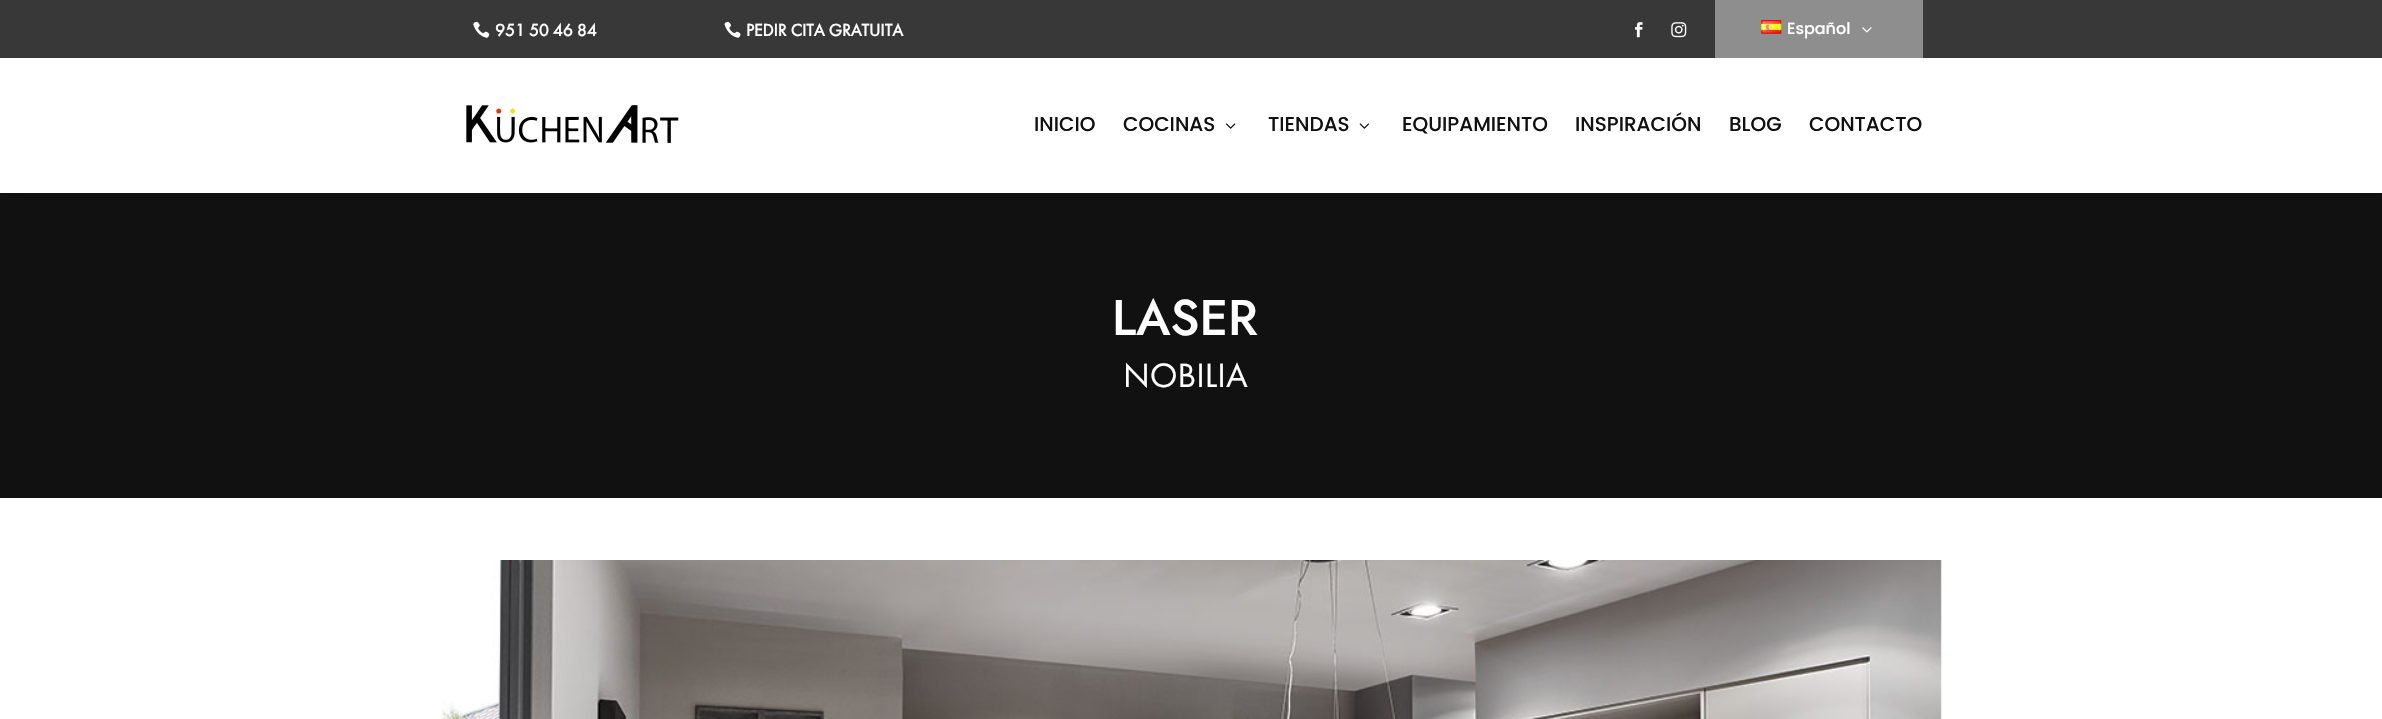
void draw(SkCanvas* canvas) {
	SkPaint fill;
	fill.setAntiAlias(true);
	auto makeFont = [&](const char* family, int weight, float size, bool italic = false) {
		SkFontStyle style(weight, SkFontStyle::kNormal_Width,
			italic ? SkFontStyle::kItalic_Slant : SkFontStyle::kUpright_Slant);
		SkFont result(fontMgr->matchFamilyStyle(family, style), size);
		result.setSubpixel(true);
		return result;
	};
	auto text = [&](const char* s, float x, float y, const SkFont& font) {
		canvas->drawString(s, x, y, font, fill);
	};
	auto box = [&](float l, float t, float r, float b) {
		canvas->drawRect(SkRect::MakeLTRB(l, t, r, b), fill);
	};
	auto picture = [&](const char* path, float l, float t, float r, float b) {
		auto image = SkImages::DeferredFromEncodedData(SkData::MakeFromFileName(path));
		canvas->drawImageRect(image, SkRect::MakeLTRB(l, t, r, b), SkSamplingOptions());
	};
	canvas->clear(0xFFFFFFFF);
	fill.setColor(0xFF111111);
	box(0, 193, 2382, 498);
	fill.setColor(0x4D000000);
	fill.setMaskFilter(SkMaskFilter::MakeBlur(kNormal_SkBlurStyle, 12));
	canvas->drawRect(SkRect::MakeLTRB(8, 63, 2375, 183), fill);
	fill.setMaskFilter(nullptr);
	fill.setColor(0xFF383838);
	box(0, 0, 2382, 58);
	picture("image0.png", 473, 21, 490, 38);
	picture("image1.png", 724, 21, 741, 38);
	picture("image2.png", 1635, 22, 1643, 38);
	picture("image3.png", 1671, 22, 1687, 38);
	fill.setColor(0xFF8E8E8E);
	box(1715, 0, 1923, 58);
	picture("image4.png", 1761, 20, 1782, 34);
	picture("image5.png", 1862, 27, 1872, 33);
	fill.setColor(0xFFFFFFFF);
	box(0, 58, 2382, 193);
	picture("image6.png", 466, 105, 679, 143);
	picture("image7.png", 1226, 123, 1236, 129);
	picture("image8.png", 1359, 123, 1369, 129);
	picture("image9.png", 441, 560, 1942, 719);
	auto font1 = makeFont("Futura PT", 700, 17.5f);
	text("951 50 46 84", 495, 36, font1);
	text("PEDIR CITA GRATUITA", 746, 36, font1);
	auto font2 = makeFont("Poppins", 500, 16);
	text("Español", 1787, 34, font2);
	auto font3 = makeFont("Poppins", 500, 20);
	fill.setColor(0xFF111111);
	text("INICIO", 1034, 131, font3);
	text("COCINAS", 1123, 131, font3);
	text("TIENDAS", 1268, 131, font3);
	text("EQUIPAMIENTO", 1402, 131, font3);
	text("INSPIRACIÓN", 1575, 131, font3);
	text("BLOG", 1729, 131, font3);
	text("CONTACTO", 1809, 131, font3);
	auto font4 = makeFont("Jost", 500, 50);
	fill.setColor(0xFFFFFFFF);
	text("LASER", 1112, 335, font4);
	auto font5 = makeFont("Futura PT", 400, 35);
	text("NOBILIA", 1123, 387, font5);
}
